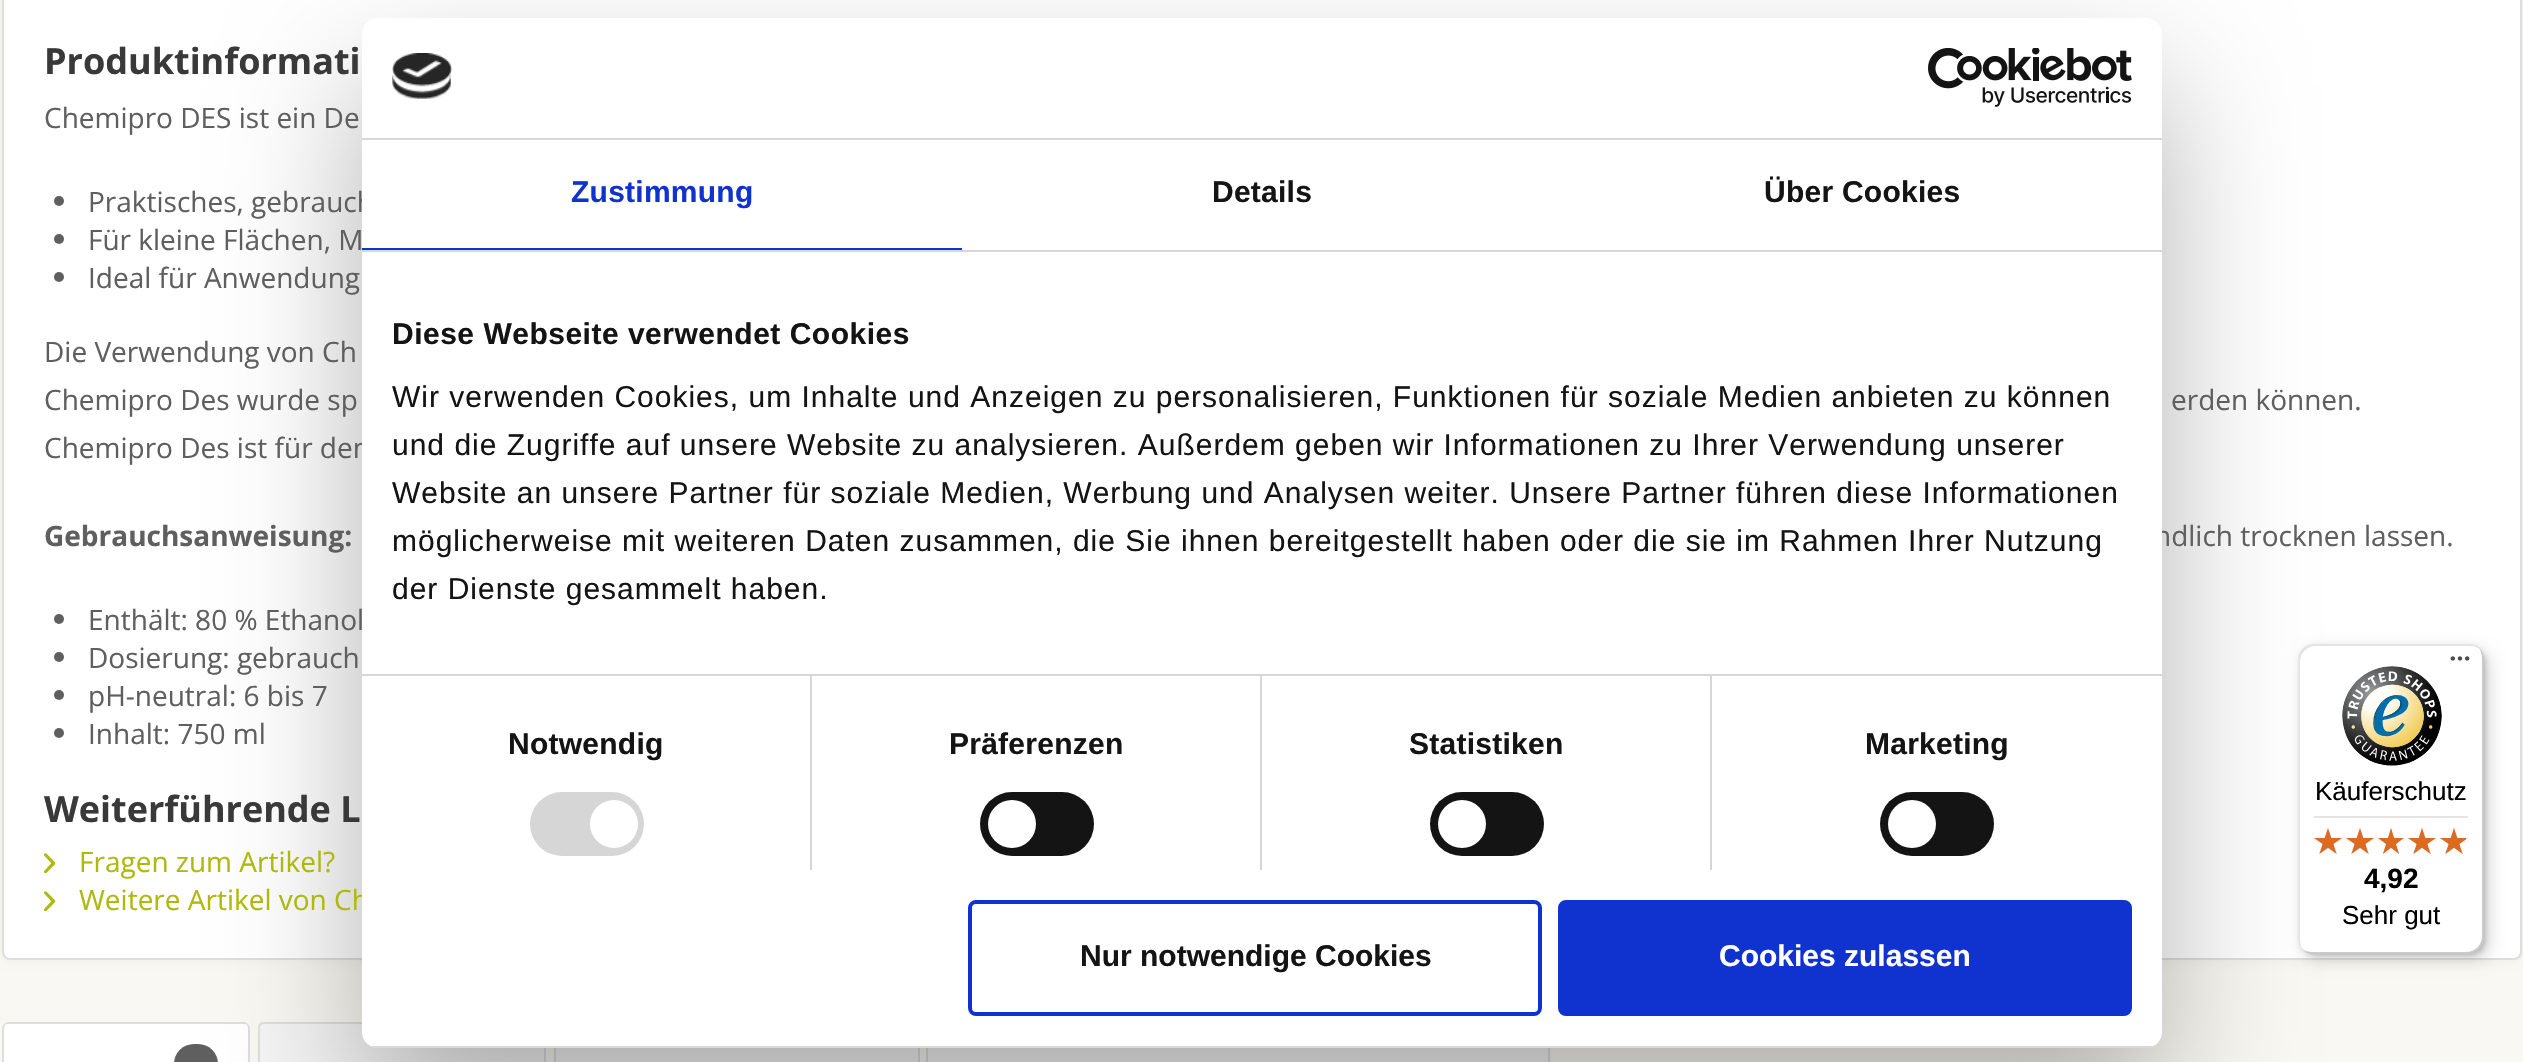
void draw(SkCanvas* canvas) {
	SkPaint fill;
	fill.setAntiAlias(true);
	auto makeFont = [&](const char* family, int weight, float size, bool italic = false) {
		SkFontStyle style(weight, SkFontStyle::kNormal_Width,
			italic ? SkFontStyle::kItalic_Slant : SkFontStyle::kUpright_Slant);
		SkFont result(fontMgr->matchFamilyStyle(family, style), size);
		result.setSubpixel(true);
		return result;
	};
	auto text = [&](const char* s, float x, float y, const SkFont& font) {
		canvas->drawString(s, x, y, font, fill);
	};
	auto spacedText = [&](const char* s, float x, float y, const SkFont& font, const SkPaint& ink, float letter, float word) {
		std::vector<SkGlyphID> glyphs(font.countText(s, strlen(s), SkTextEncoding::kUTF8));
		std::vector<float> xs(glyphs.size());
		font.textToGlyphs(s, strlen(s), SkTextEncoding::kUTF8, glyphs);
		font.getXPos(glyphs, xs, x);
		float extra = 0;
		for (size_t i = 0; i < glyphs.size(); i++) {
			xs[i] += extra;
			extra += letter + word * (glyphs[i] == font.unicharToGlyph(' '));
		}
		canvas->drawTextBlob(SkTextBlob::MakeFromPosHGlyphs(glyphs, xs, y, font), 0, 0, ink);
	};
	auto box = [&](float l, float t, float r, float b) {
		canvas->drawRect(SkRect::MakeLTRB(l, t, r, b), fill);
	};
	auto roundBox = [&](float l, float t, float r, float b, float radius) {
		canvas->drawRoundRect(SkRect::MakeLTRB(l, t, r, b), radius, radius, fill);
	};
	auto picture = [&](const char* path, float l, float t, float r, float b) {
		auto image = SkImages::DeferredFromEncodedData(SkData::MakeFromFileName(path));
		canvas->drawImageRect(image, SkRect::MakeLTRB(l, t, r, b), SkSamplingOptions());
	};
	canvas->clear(0xFFFAF8F2);
	fill.setColor(0x0D000000);
	fill.setMaskFilter(SkMaskFilter::MakeBlur(kNormal_SkBlurStyle, 5));
	canvas->drawRoundRect(SkRect::MakeLTRB(2, -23, 2522, 960), 8, 8, fill);
	fill.setMaskFilter(nullptr);
	fill.setColor(0xFFFFFFFF);
	canvas->drawPath(SkPathBuilder().moveTo(4, -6).lineTo(2514, -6).cubicTo(2517.5f, -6, 2520, -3.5f, 2520, 0).lineTo(2520, 952).cubicTo(2520, 955.5f, 2517.5f, 958, 2514, 958).lineTo(10, 958).cubicTo(6.5f, 958, 4, 955.5f, 4, 952).close().detach(), fill);
	fill.setStyle(SkPaint::kStroke_Style);
	fill.setStrokeWidth(2);
	fill.setColor(0xFFDEDEDE);
	canvas->drawPath(SkPathBuilder().moveTo(3, -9).lineTo(2514, -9).cubicTo(2518, -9, 2521, -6, 2521, -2).lineTo(2521, 952).cubicTo(2521, 956, 2518, 959, 2514, 959).lineTo(10, 959).cubicTo(6, 959, 3, 956, 3, 952).close().detach(), fill);
	fill.setStyle(SkPaint::kFill_Style);
	fill.setColor(0xFF5F5F5F);
	canvas->drawCircle(59, 201, 5, fill);
	canvas->drawCircle(59, 239, 5, fill);
	canvas->drawCircle(59, 277, 5, fill);
	canvas->drawCircle(59, 619, 5, fill);
	canvas->drawCircle(59, 657, 5, fill);
	canvas->drawCircle(59, 695, 5, fill);
	canvas->drawCircle(59, 733, 5, fill);
	picture("image0.png", 44, 853, 56, 874);
	picture("image0.png", 44, 891, 56, 912);
	fill.setColor(0xFFFFFFFF);
	canvas->drawPath(SkPathBuilder().moveTo(8, 1022).lineTo(244, 1022).cubicTo(247.5f, 1022, 250, 1024.5f, 250, 1028).lineTo(250, 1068).lineTo(2, 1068).lineTo(2, 1028).cubicTo(2, 1024.5f, 4.5f, 1022, 8, 1022).close().detach(), fill);
	fill.setColor(0xFFDEDEDE);
	canvas->drawPath(SkPathBuilder().moveTo(8, 1022).cubicTo(6, 1022, 5, 1023, 4, 1024).lineTo(5, 1025).cubicTo(6, 1024, 7, 1024, 8, 1024).lineTo(244, 1024).cubicTo(245, 1024, 246, 1024, 247, 1025).lineTo(248, 1024).cubicTo(247, 1023, 246, 1022, 244, 1022).close().detach(), fill);
	canvas->drawPath(SkPathBuilder().moveTo(250, 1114).lineTo(250, 1027).lineTo(248, 1024).lineTo(247, 1025).lineTo(248, 1028).lineTo(248, 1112).close().detach(), fill);
	canvas->drawPath(SkPathBuilder().moveTo(2, 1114).lineTo(4, 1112).lineTo(4, 1028).lineTo(5, 1025).lineTo(4, 1024).cubicTo(3, 1025, 2, 1026, 2, 1028).close().detach(), fill);
	fill.setColor(0xFF5F5F5F);
	roundBox(174, 1044, 218, 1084, 22);
	fill.setColor(0xFFF5F5F5);
	canvas->drawPath(SkPathBuilder().moveTo(264, 1024).lineTo(540, 1024).cubicTo(542, 1024, 544, 1026, 544, 1028).lineTo(544, 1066).lineTo(260, 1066).lineTo(260, 1028).cubicTo(260, 1026, 262, 1024, 264, 1024).close().detach(), fill);
	fill.setStyle(SkPaint::kStroke_Style);
	fill.setColor(0xFFDEDEDE);
	canvas->drawPath(SkPathBuilder().moveTo(264, 1023).lineTo(540, 1023).cubicTo(543, 1023, 545, 1025, 545, 1028).lineTo(545, 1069).lineTo(259, 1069).lineTo(259, 1028).cubicTo(259, 1025, 261, 1023, 264, 1023).close().detach(), fill);
	fill.setStyle(SkPaint::kFill_Style);
	fill.setColor(0xFFF5F5F5);
	box(556, 1048, 918, 1062);
	fill.setStyle(SkPaint::kStroke_Style);
	fill.setColor(0xFFDEDEDE);
	canvas->drawRect(SkRect::MakeLTRB(555, 1023, 919, 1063), fill);
	fill.setStyle(SkPaint::kFill_Style);
	fill.setColor(0xFFF5F5F5);
	box(928, 1048, 1548, 1062);
	fill.setStyle(SkPaint::kStroke_Style);
	fill.setColor(0xFFDEDEDE);
	canvas->drawRect(SkRect::MakeLTRB(927, 1023, 1549, 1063), fill);
	fill.setStyle(SkPaint::kFill_Style);
	fill.setColor(0x4D000000);
	fill.setMaskFilter(SkMaskFilter::MakeBlur(kNormal_SkBlurStyle, 68));
	canvas->drawRoundRect(SkRect::MakeLTRB(362, 82, 2162, 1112), 16, 16, fill);
	fill.setMaskFilter(nullptr);
	fill.setColor(0x26000000);
	fill.setMaskFilter(SkMaskFilter::MakeBlur(kNormal_SkBlurStyle, 8));
	canvas->drawRoundRect(SkRect::MakeLTRB(2304, 650, 2490, 960), 16, 16, fill);
	fill.setMaskFilter(nullptr);
	fill.setMaskFilter(SkMaskFilter::MakeBlur(kNormal_SkBlurStyle, 2));
	canvas->drawRoundRect(SkRect::MakeLTRB(2300, 646, 2486, 956), 16, 16, fill);
	fill.setMaskFilter(nullptr);
	fill.setColor(0xFFFFFFFF);
	roundBox(2298, 644, 2484, 954, 16);
	fill.setColor(0x1A000000);
	canvas->drawPath(SkPathBuilder().moveTo(2316, 646).lineTo(2470, 646).cubicTo(2474, 646, 2477, 647, 2480, 649).cubicTo(2477, 646, 2473, 644, 2468, 644).lineTo(2314, 644).cubicTo(2305, 644, 2298, 651, 2298, 660).lineTo(2298, 938).cubicTo(2298, 943, 2300, 947, 2303, 950).cubicTo(2301, 947, 2300, 944, 2300, 940).lineTo(2300, 662).cubicTo(2300, 653, 2307, 646, 2316, 646).close().detach(), fill);
	fill.setColor(0x33000000);
	canvas->drawPath(SkPathBuilder().moveTo(2302, 949).cubicTo(2305, 952, 2309, 954, 2314, 954).lineTo(2468, 954).cubicTo(2477, 954, 2484, 947, 2484, 938).lineTo(2484, 660).cubicTo(2484, 655, 2482, 651, 2479, 648).cubicTo(2481, 651, 2482, 654, 2482, 658).lineTo(2482, 936).cubicTo(2482, 945, 2475, 952, 2466, 952).lineTo(2312, 952).cubicTo(2308, 952, 2305, 951, 2302, 949).close().detach(), fill);
	fill.setColor(0x33323232);
	canvas->drawPath(SkPathBuilder().moveTo(2303, 949).cubicTo(2306, 952, 2310, 954, 2314, 954).lineTo(2468, 954).cubicTo(2477, 954, 2484, 947, 2484, 938).lineTo(2484, 660).cubicTo(2484, 656, 2482, 652, 2479, 649).cubicTo(2482, 652, 2483, 655, 2483, 659).lineTo(2483, 937).cubicTo(2483, 946, 2476, 953, 2467, 953).lineTo(2313, 953).cubicTo(2309, 953, 2306, 952, 2303, 949).close().detach(), fill);
	fill.setColor(0x4DFFFFFF);
	canvas->drawPath(SkPathBuilder().moveTo(2303, 949).cubicTo(2306, 952, 2310, 954, 2314, 954).lineTo(2468, 954).cubicTo(2477, 954, 2484, 947, 2484, 938).lineTo(2484, 660).cubicTo(2484, 656, 2482, 652, 2479, 649).cubicTo(2482, 652, 2483, 655, 2483, 659).lineTo(2483, 937).cubicTo(2483, 946, 2476, 953, 2467, 953).lineTo(2313, 953).cubicTo(2309, 953, 2306, 952, 2303, 949).close().detach(), fill);
	picture("image3.png", 2450, 656, 2470, 661);
	picture("image4.png", 2342, 666, 2442, 766);
	fill.setColor(0xFFE5E5E5);
	box(2314, 816, 2468, 818);
	picture("image5.png", 2314, 828, 2342, 854);
	picture("image5.png", 2346, 828, 2374, 854);
	picture("image6.png", 2378, 828, 2404, 854);
	picture("image5.png", 2408, 828, 2436, 854);
	picture("image5.png", 2440, 828, 2468, 854);
	picture("image7.png", 2314, 828, 2342, 854);
	picture("image7.png", 2346, 828, 2374, 854);
	picture("image8.png", 2378, 828, 2404, 854);
	picture("image7.png", 2408, 828, 2436, 854);
	picture("image9.png", 2440, 828, 2466, 854);
	auto font1 = makeFont("Open Sans", 700, 36);
	fill.setColor(0xFF393939);
	text("Produktinformati", 44, 74, font1);
	auto font2 = makeFont("Open Sans", 400, 28);
	fill.setColor(0xFF5F5F5F);
	text("Chemipro DES ist ein De", 44, 128, font2);
	text("Praktisches, gebrauch", 88, 212, font2);
	text("Für kleine Flächen, M", 88, 250, font2);
	text("Ideal für Anwendung", 88, 288, font2);
	text("Die Verwendung von Ch", 44, 362, font2);
	text("Chemipro Des wurde sp", 44, 410, font2);
	text("erden können.", 2171, 410, font2);
	text("Chemipro Des ist für den", 44, 458, font2);
	auto font3 = makeFont("Open Sans", 700, 28);
	text("Gebrauchsanweisung:", 44, 546, font3);
	text("ndlich trocknen lassen.", 2154, 546, font2);
	text("Enthält: 80 % Ethanol", 88, 630, font2);
	text("Dosierung: gebrauch", 88, 668, font2);
	text("pH-neutral: 6 bis 7", 88, 706, font2);
	text("Inhalt: 750 ml", 88, 744, font2);
	fill.setColor(0xFF393939);
	text("Weiterführende L", 44, 822, font1);
	fill.setColor(0xFFAEB80D);
	text("Fragen zum Artikel?", 79, 872, font2);
	text("Weitere Artikel von Ch", 79, 910, font2);
	fill.setColor(0xFFFFFFFF);
	roundBox(362, 18, 2162, 1048, 16);
	fill.setColor(0xFFD6D6D6);
	box(362, 138, 2162, 140);
	picture("image1.png", 392, 53, 452, 99);
	picture("image2.png", 1928, 48, 2132, 107);
	box(362, 250, 2162, 252);
	fill.setColor(0xFF1032CF);
	box(362, 248, 962, 250);
	auto font4 = makeFont("Liberation Sans", 700, 30);
	spacedText("Zustimmung", 571, 202, font4, fill, 0.25f, 0);
	fill.setColor(0xFF141414);
	spacedText("Details", 1212, 202, font4, fill, 0.25f, 0);
	spacedText("Über Cookies", 1764, 202, font4, fill, 0.25f, 0);
	fill.setColor(0xFFD6D6D6);
	box(362, 674, 2162, 676);
	fill.setColor(0xFF141414);
	spacedText("Diese Webseite verwendet Cookies", 392, 344, font4, fill, 0.5f, 0);
	auto font5 = makeFont("Liberation Sans", 400, 30);
	spacedText("Wir verwenden Cookies, um Inhalte und Anzeigen zu personalisieren, Funktionen für soziale Medien anbieten zu können", 392, 407, font5, fill, 1, 0);
	spacedText("und die Zugriffe auf unsere Website zu analysieren. Außerdem geben wir Informationen zu Ihrer Verwendung unserer", 392, 455, font5, fill, 1, 0);
	spacedText("Website an unsere Partner für soziale Medien, Werbung und Analysen weiter. Unsere Partner führen diese Informationen", 392, 503, font5, fill, 1, 0);
	spacedText("möglicherweise mit weiteren Daten zusammen, die Sie ihnen bereitgestellt haben oder die sie im Rahmen Ihrer Nutzung", 392, 551, font5, fill, 1, 0);
	spacedText("der Dienste gesammelt haben.", 392, 599, font5, fill, 1, 0);
	fill.setColor(0xFFD6D6D6);
	box(810, 676, 812, 870);
	fill.setColor(0xFF141414);
	spacedText("Notwendig", 508, 754, font4, fill, 0.25f, 0);
	fill.setColor(0xFFD6D6D6);
	roundBox(530, 792, 644, 856, 32);
	fill.setColor(0xFFFFFFFF);
	canvas->drawCircle(614, 824, 24, fill);
	fill.setColor(0xFFD6D6D6);
	box(1260, 676, 1262, 870);
	fill.setColor(0xFF141414);
	spacedText("Präferenzen", 949, 754, font4, fill, 0.25f, 0);
	roundBox(980, 792, 1094, 856, 32);
	fill.setColor(0xFFFFFFFF);
	canvas->drawCircle(1012, 824, 24, fill);
	fill.setColor(0xFFD6D6D6);
	box(1710, 676, 1712, 870);
	fill.setColor(0xFF141414);
	spacedText("Statistiken", 1409, 754, font4, fill, 0.25f, 0);
	roundBox(1430, 792, 1544, 856, 32);
	fill.setColor(0xFFFFFFFF);
	canvas->drawCircle(1462, 824, 24, fill);
	fill.setColor(0xFF141414);
	spacedText("Marketing", 1865, 754, font4, fill, 0.25f, 0);
	roundBox(1880, 792, 1994, 856, 32);
	fill.setColor(0xFFFFFFFF);
	canvas->drawCircle(1912, 824, 24, fill);
	canvas->save();
	canvas->clipPath(SkPathBuilder().moveTo(378, 18).lineTo(2146, 18).cubicTo(2155, 18, 2162, 25, 2162, 34).lineTo(2162, 1032).cubicTo(2162, 1041, 2155, 1048, 2146, 1048).lineTo(378, 1048).cubicTo(369, 1048, 362, 1041, 362, 1032).lineTo(362, 34).cubicTo(362, 25, 369, 18, 378, 18).close().detach(), true);
	fill.setColor(0xFFD6D6D6);
	box(362, 1046, 2162, 1048);
	canvas->restore();
	fill.setStyle(SkPaint::kStroke_Style);
	fill.setStrokeWidth(4);
	fill.setColor(0xFF1032CF);
	canvas->drawRoundRect(SkRect::MakeLTRB(970, 902, 1540, 1014), 6, 6, fill);
	fill.setStyle(SkPaint::kFill_Style);
	fill.setColor(0xFF141414);
	text("Nur notwendige Cookies", 1080, 966, font4);
	fill.setColor(0xFF1032CF);
	canvas->drawRoundRect(SkRect::MakeLTRB(1560, 902, 2130, 1014), 6, 6, fill);
	fill.setStyle(SkPaint::kStroke_Style);
	canvas->drawRoundRect(SkRect::MakeLTRB(1560, 902, 2130, 1014), 6, 6, fill);
	fill.setStyle(SkPaint::kFill_Style);
	fill.setColor(0xFFFFFFFF);
	text("Cookies zulassen", 1719, 966, font4);
	auto font6 = makeFont("Liberation Sans", 400, 26);
	fill.setColor(0xFF000000);
	text("Käuferschutz", 2315, 800, font6);
	auto font7 = makeFont("Liberation Sans", 700, 28);
	text("4,92", 2364, 888, font7);
	text("Sehr gut", 2342, 924, font6);
}
